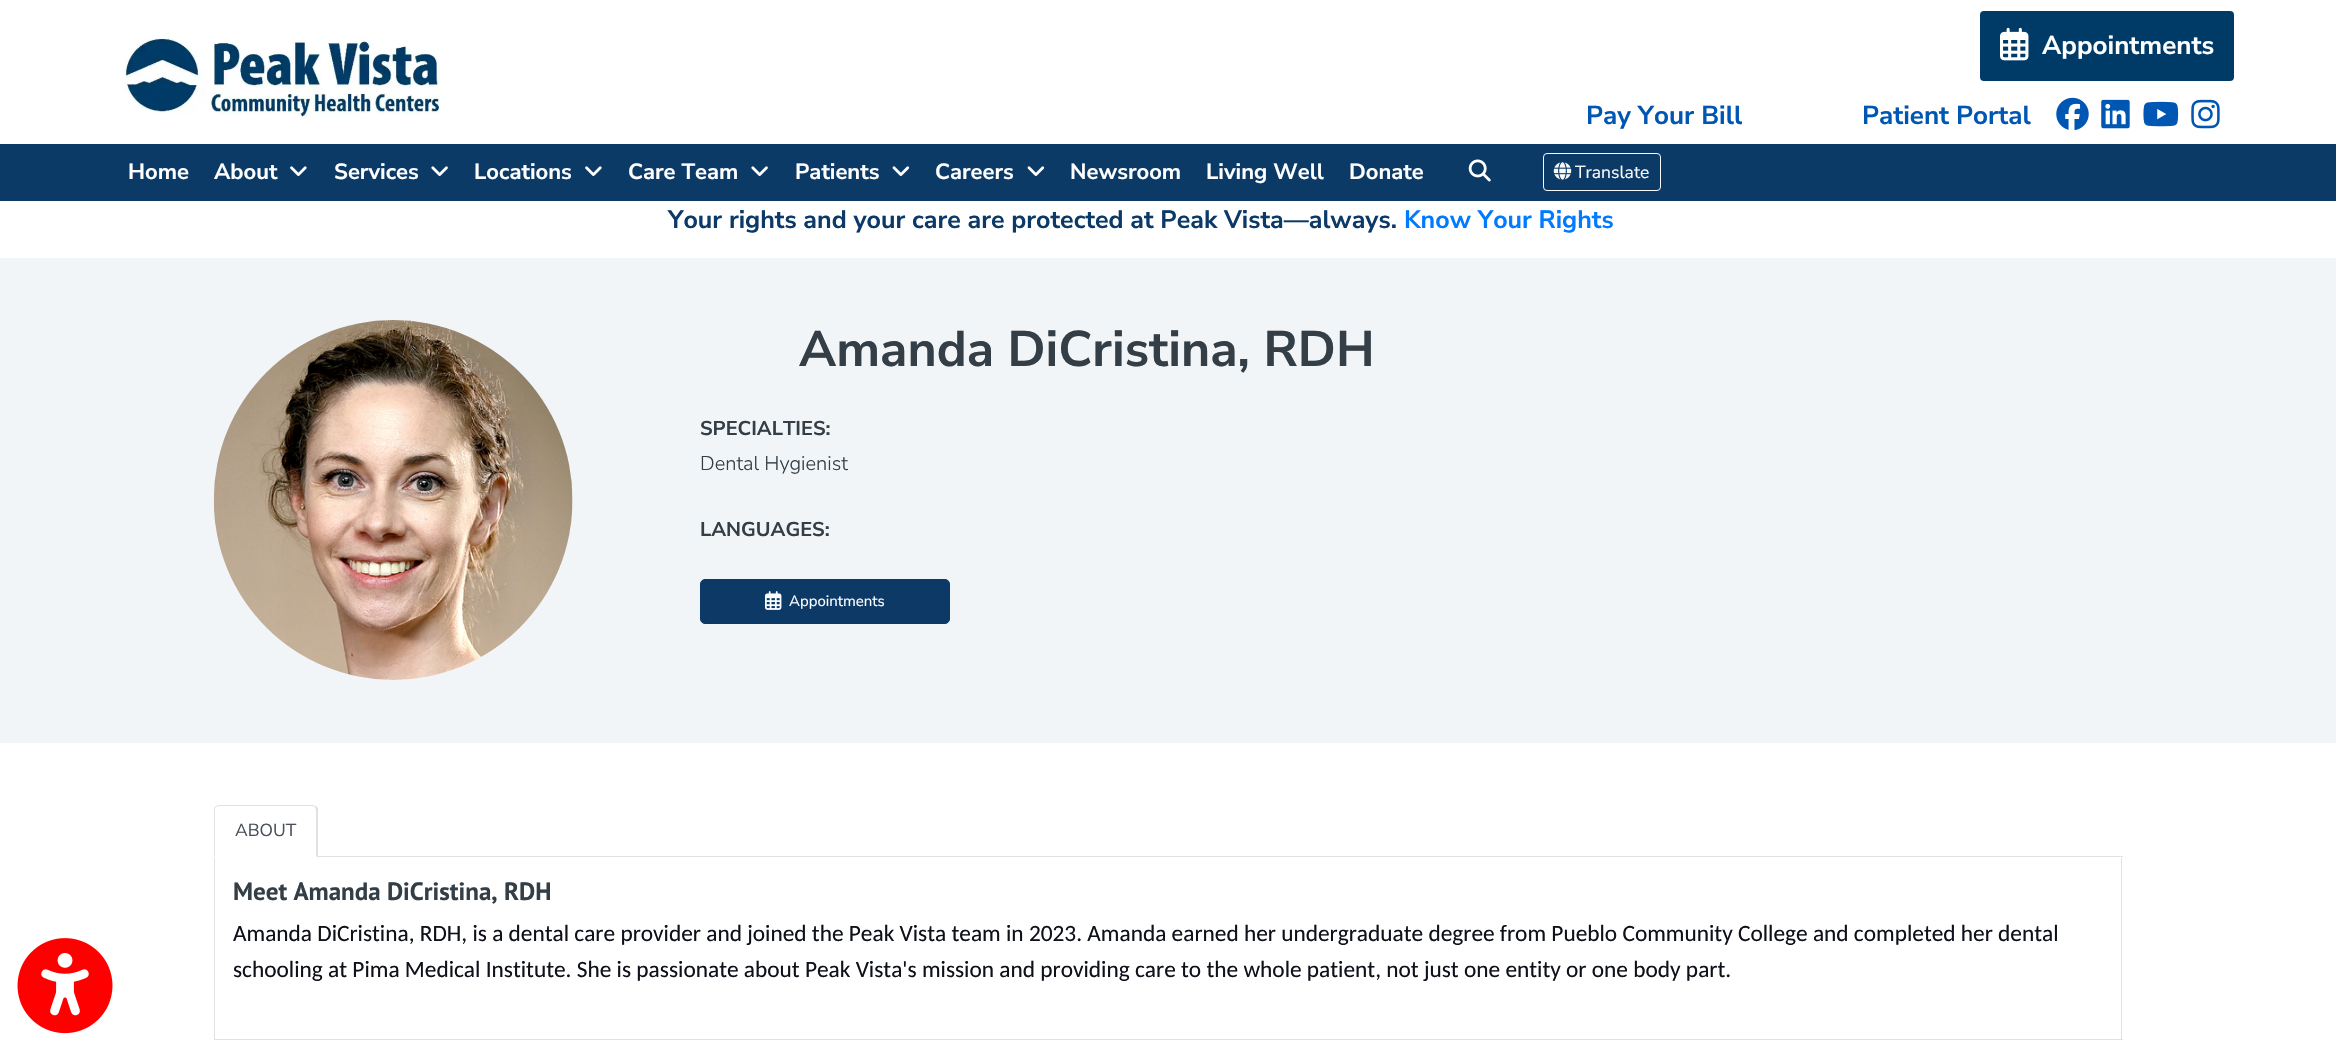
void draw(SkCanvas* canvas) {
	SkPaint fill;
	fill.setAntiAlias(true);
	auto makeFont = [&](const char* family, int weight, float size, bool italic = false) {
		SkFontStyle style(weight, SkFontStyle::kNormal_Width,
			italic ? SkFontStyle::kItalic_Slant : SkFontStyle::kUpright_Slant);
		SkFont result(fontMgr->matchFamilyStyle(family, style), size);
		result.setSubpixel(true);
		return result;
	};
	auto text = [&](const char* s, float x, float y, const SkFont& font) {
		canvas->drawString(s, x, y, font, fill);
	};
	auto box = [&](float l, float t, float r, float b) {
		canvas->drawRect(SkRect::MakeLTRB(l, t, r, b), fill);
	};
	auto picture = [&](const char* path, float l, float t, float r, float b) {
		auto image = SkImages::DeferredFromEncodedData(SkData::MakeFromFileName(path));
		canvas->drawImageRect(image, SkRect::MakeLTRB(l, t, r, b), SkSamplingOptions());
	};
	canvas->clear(0xFFFFFFFF);
	picture("image0.png", 123, 38, 441, 119);
	fill.setColor(0xFF003A67);
	canvas->drawRoundRect(SkRect::MakeLTRB(1981.5f, 12.5f, 2232.5f, 79.5f), 2.5f, 2.5f, fill);
	fill.setStyle(SkPaint::kStroke_Style);
	fill.setStrokeWidth(3);
	canvas->drawRoundRect(SkRect::MakeLTRB(1981.5f, 12.5f, 2232.5f, 79.5f), 2.5f, 2.5f, fill);
	picture("image1.png", 2000, 27, 2029, 61);
	picture("image2.png", 2056, 97, 2089, 131);
	picture("image3.png", 2101, 99, 2130, 129);
	picture("image4.png", 2143, 101, 2179, 127);
	picture("image5.png", 2191, 99, 2220, 129);
	fill.setStyle(SkPaint::kFill_Style);
	fill.setColor(0xFF0C3A67);
	box(0, 144, 2336, 201);
	picture("image6.png", 290, 166, 307, 176);
	picture("image7.png", 431, 166, 448, 176);
	picture("image6.png", 585, 166, 602, 176);
	picture("image7.png", 751, 166, 768, 176);
	picture("image8.png", 892, 166, 910, 176);
	picture("image8.png", 1027, 166, 1045, 176);
	picture("image9.png", 1468, 159, 1491, 182);
	fill.setStyle(SkPaint::kStroke_Style);
	fill.setStrokeWidth(1);
	fill.setColor(0xFFF8F9FA);
	canvas->drawRoundRect(SkRect::MakeLTRB(1543.5f, 153.5f, 1660.5f, 190.5f), 3.5f, 3.5f, fill);
	picture("image10.png", 1553, 162, 1572, 180);
	picture("image11.png", 17, 938, 113, 1034);
	fill.setStyle(SkPaint::kFill_Style);
	fill.setColor(0xFFF2F5F8);
	box(0, 258, 2336, 743);
	picture("image12.png", 213, 320, 573, 680);
	fill.setColor(0xFF0D3967);
	canvas->drawRoundRect(SkRect::MakeLTRB(700.5f, 579.5f, 949.5f, 623.5f), 4.5f, 4.5f, fill);
	fill.setStyle(SkPaint::kStroke_Style);
	canvas->drawRoundRect(SkRect::MakeLTRB(700.5f, 579.5f, 949.5f, 623.5f), 4.5f, 4.5f, fill);
	picture("image13.png", 765, 591, 782, 610);
	fill.setStyle(SkPaint::kFill_Style);
	fill.setColor(0xFFDEE2E6);
	box(318, 856, 2123, 857);
	canvas->drawPath(SkPathBuilder().moveTo(219, 805).cubicTo(217, 805, 216, 806, 215, 807).lineTo(216, 807).lineTo(219, 806).lineTo(312, 806).cubicTo(313, 806, 314, 806, 315, 807).lineTo(316, 806).cubicTo(315, 806, 314, 805, 312, 805).close().detach(), fill);
	canvas->drawPath(SkPathBuilder().moveTo(316, 806).lineTo(318, 808).lineTo(318, 858).lineTo(316, 856).lineTo(316, 810).lineTo(315, 807).close().detach(), fill);
	fill.setColor(0xFFFFFFFF);
	canvas->drawPath(SkPathBuilder().moveTo(318, 858).lineTo(214, 858).lineTo(215, 856).lineTo(316, 856).close().detach(), fill);
	fill.setColor(0xFFDEE2E6);
	canvas->drawPath(SkPathBuilder().moveTo(215, 807).cubicTo(214, 807, 214, 809, 214, 810).lineTo(214, 857).lineTo(215, 856).lineTo(215, 810).cubicTo(215, 809, 215, 808, 216, 807).close().detach(), fill);
	box(2121, 858, 2122, 1040);
	box(214, 1039, 2123, 1040);
	box(214, 858, 215, 1040);
	auto font1 = makeFont("Nunito Sans", 700, 26);
	fill.setColor(0xFFFFFFFF);
	text("Appointments", 2042, 54, font1);
	fill.setColor(0xFF0056B3);
	text("Pay Your Bill", 1586, 124, font1);
	text("Patient Portal", 1862, 124, font1);
	auto font2 = makeFont("Nunito Sans", 700, 22);
	fill.setColor(0xFFFFFFFF);
	text("Home", 128, 179, font2);
	text("About", 214, 179, font2);
	text("Services", 334, 179, font2);
	text("Locations", 474, 179, font2);
	text("Care Team", 628, 179, font2);
	text("Patients", 795, 179, font2);
	text("Careers", 935, 179, font2);
	text("Newsroom", 1070, 179, font2);
	text("Living Well", 1206, 179, font2);
	text("Donate", 1349, 179, font2);
	auto font3 = makeFont("Nunito Sans", 400, 17.5f);
	fill.setColor(0xFFF8F9FA);
	text("Translate", 1575, 178, font3);
	auto font4 = makeFont("Nunito Sans", 700, 25);
	fill.setColor(0xFF0C3A68);
	text("Your rights and your care are protected at Peak Vista—always.", 668, 228, font4);
	fill.setColor(0xFF007BFF);
	text("Know Your Rights", 1404, 228, font4);
	auto font5 = makeFont("Nunito Sans", 700, 50);
	fill.setColor(0xFF343E46);
	text("Amanda DiCristina, RDH", 799, 366, font5);
	auto font6 = makeFont("Nunito Sans", 700, 20);
	text("SPECIALTIES:", 700, 435, font6);
	auto font7 = makeFont("Nunito Sans", 300, 20);
	text("Dental Hygienist", 700, 470, font7);
	text("LANGUAGES:", 700, 536, font6);
	auto font8 = makeFont("Nunito Sans", 400, 15);
	fill.setColor(0xFFFFFFFF);
	text("Appointments", 789, 606, font8);
	fill.setColor(0xFF495057);
	text("ABOUT", 235, 836, font3);
	auto font9 = makeFont("PT Sans", 700, 25);
	fill.setColor(0xFF343E46);
	text("Meet Amanda DiCristina, RDH", 233, 900, font9);
	auto font10 = makeFont("Carlito", 400, 23.33f);
	fill.setColor(0xFF0E101A);
	text("Amanda DiCristina, RDH, is a dental care provider and joined the Peak Vista team in 2023. Amanda earned her undergraduate degree from Pueblo Community College and completed her dental", 233, 941, font10);
	text("schooling at Pima Medical Institute. She is passionate about Peak Vista's mission and providing care to the whole patient, not just one entity or one body part.", 233, 977, font10);
}
